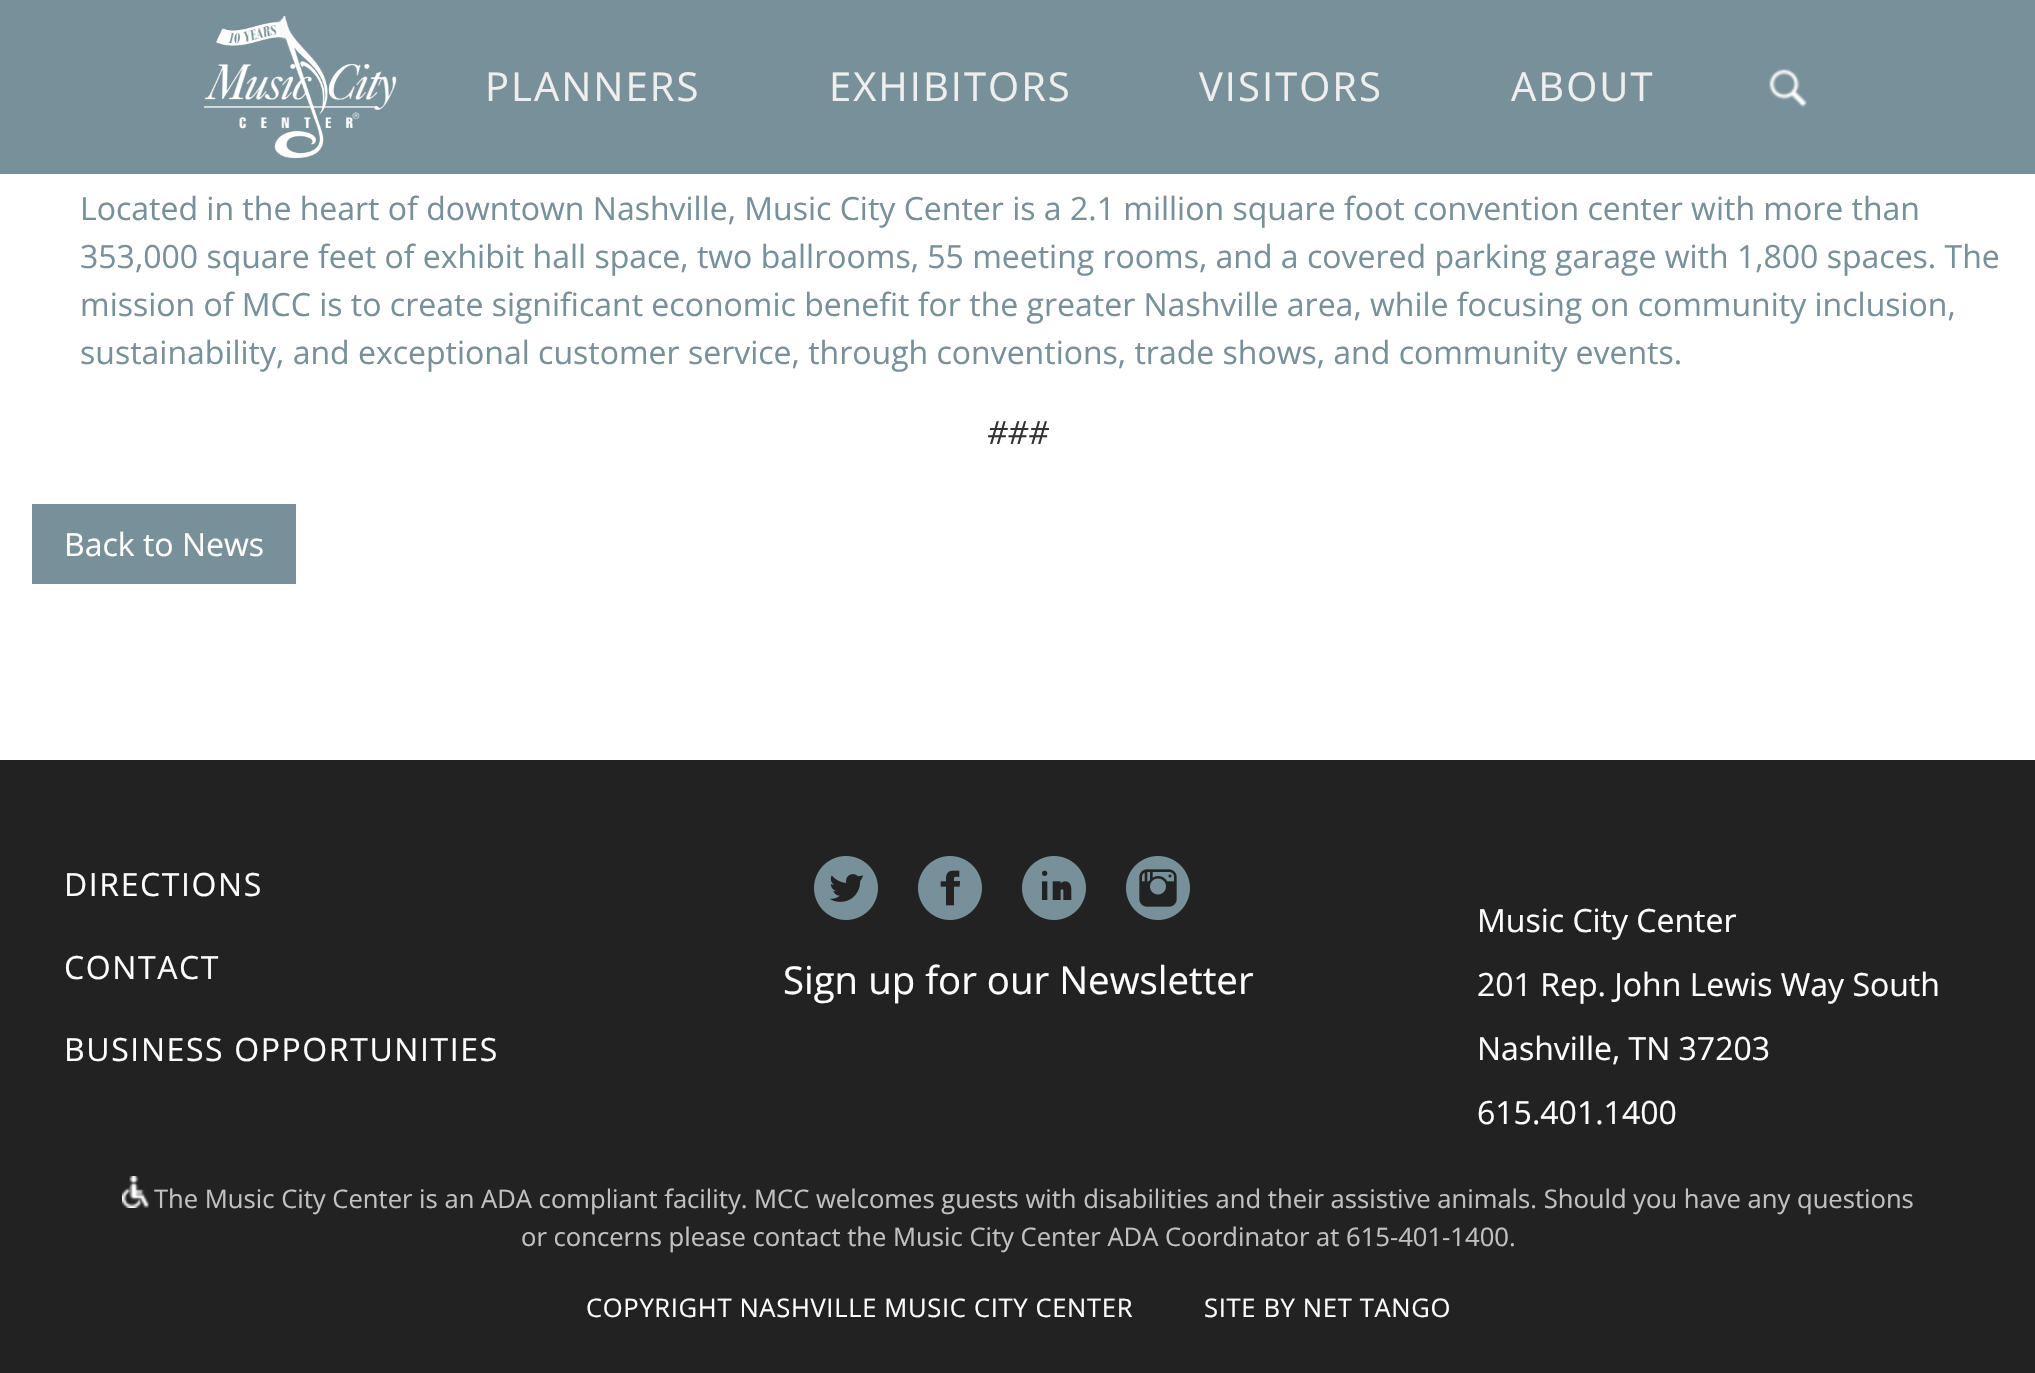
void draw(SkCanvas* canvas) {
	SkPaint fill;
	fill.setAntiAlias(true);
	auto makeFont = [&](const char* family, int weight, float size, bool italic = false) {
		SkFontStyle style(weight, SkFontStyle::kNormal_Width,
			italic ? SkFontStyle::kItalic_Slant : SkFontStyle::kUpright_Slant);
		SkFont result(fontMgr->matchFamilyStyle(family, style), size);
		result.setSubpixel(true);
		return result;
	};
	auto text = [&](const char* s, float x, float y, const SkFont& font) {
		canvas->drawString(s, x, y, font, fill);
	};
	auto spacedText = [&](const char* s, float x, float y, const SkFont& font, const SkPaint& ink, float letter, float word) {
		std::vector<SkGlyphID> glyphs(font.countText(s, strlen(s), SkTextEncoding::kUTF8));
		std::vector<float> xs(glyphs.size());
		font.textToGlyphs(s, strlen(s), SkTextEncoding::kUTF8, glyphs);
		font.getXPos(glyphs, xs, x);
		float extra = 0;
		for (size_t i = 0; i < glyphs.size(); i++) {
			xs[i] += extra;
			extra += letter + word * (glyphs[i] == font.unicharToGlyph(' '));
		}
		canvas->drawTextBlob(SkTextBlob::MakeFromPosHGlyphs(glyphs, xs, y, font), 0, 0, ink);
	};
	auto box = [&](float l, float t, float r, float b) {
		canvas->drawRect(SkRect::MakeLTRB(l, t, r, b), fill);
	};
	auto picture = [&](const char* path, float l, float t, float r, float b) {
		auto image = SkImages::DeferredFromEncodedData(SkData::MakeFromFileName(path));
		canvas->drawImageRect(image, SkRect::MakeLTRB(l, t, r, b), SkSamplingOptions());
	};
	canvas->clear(0xFFFFFFFF);
	fill.setColor(0xFF779099);
	box(0, 0, 2035, 174);
	picture("image0.png", 204, 16, 397, 158);
	picture("image1.png", 1769, 69, 1808, 108);
	box(32, 504, 296, 584);
	fill.setColor(0xFF222222);
	box(0, 760, 2035, 1373);
	picture("image2.png", 814, 856, 878, 920);
	picture("image3.png", 918, 856, 982, 920);
	picture("image4.png", 1022, 856, 1086, 920);
	picture("image5.png", 1126, 856, 1190, 920);
	picture("image6.png", 122, 1176, 150, 1208);
	auto font1 = makeFont("Open Sans", 400, 40);
	fill.setColor(0xFFEEEEEE);
	spacedText("PLANNERS", 485, 101, font1, fill, 2, 0);
	spacedText("EXHIBITORS", 829, 101, font1, fill, 2, 0);
	spacedText("VISITORS", 1199, 101, font1, fill, 2, 0);
	spacedText("ABOUT", 1511, 101, font1, fill, 2, 0);
	auto font2 = makeFont("Open Sans", 400, 32);
	fill.setColor(0xFF779099);
	text("Located in the heart of downtown Nashville, Music City Center is a 2.1 million square foot convention center with more than", 80, 220, font2);
	text("353,000 square feet of exhibit hall space, two ballrooms, 55 meeting rooms, and a covered parking garage with 1,800 spaces. The", 80, 268, font2);
	text("mission of MCC is to create significant economic benefit for the greater Nashville area, while focusing on community inclusion,", 80, 316, font2);
	text("sustainability, and exceptional customer service, through conventions, trade shows, and community events.", 80, 364, font2);
	auto font3 = makeFont("Open Sans", 400, 32, true);
	fill.setColor(0xFF333333);
	text("###", 987, 444, font3);
	fill.setColor(0xFFFFFFFF);
	text("Back to News", 64, 556, font2);
	spacedText("DIRECTIONS", 64, 896, font2, fill, 1.6f, 0);
	spacedText("CONTACT", 64, 979, font2, fill, 1.6f, 0);
	spacedText("BUSINESS OPPORTUNITIES", 64, 1061, font2, fill, 1.6f, 0);
	auto font4 = makeFont("Open Sans", 400, 38.4f);
	text("Sign up for our Newsletter", 783, 994, font4);
	text("Music City Center", 1477, 932, font2);
	text("201 Rep. John Lewis Way South", 1477, 996, font2);
	text("Nashville, TN 37203", 1477, 1060, font2);
	text("615.401.1400", 1477, 1124, font2);
	auto font5 = makeFont("Open Sans", 400, 25.6f);
	fill.setColor(0xFFC1C1C1);
	text("The Music City Center is an ADA compliant facility. MCC welcomes guests with disabilities and their assistive animals. Should you have any questions", 154, 1208, font5);
	text("or concerns please contact the Music City Center ADA Coordinator at 615-401-1400.", 521, 1246, font5);
	fill.setColor(0xFFFFFFFF);
	spacedText("COPYRIGHT NASHVILLE MUSIC CITY CENTER", 586, 1317, font5, fill, 0.65f, 0);
	spacedText("SITE BY NET TANGO", 1204, 1317, font5, fill, 0.65f, 0);
}
